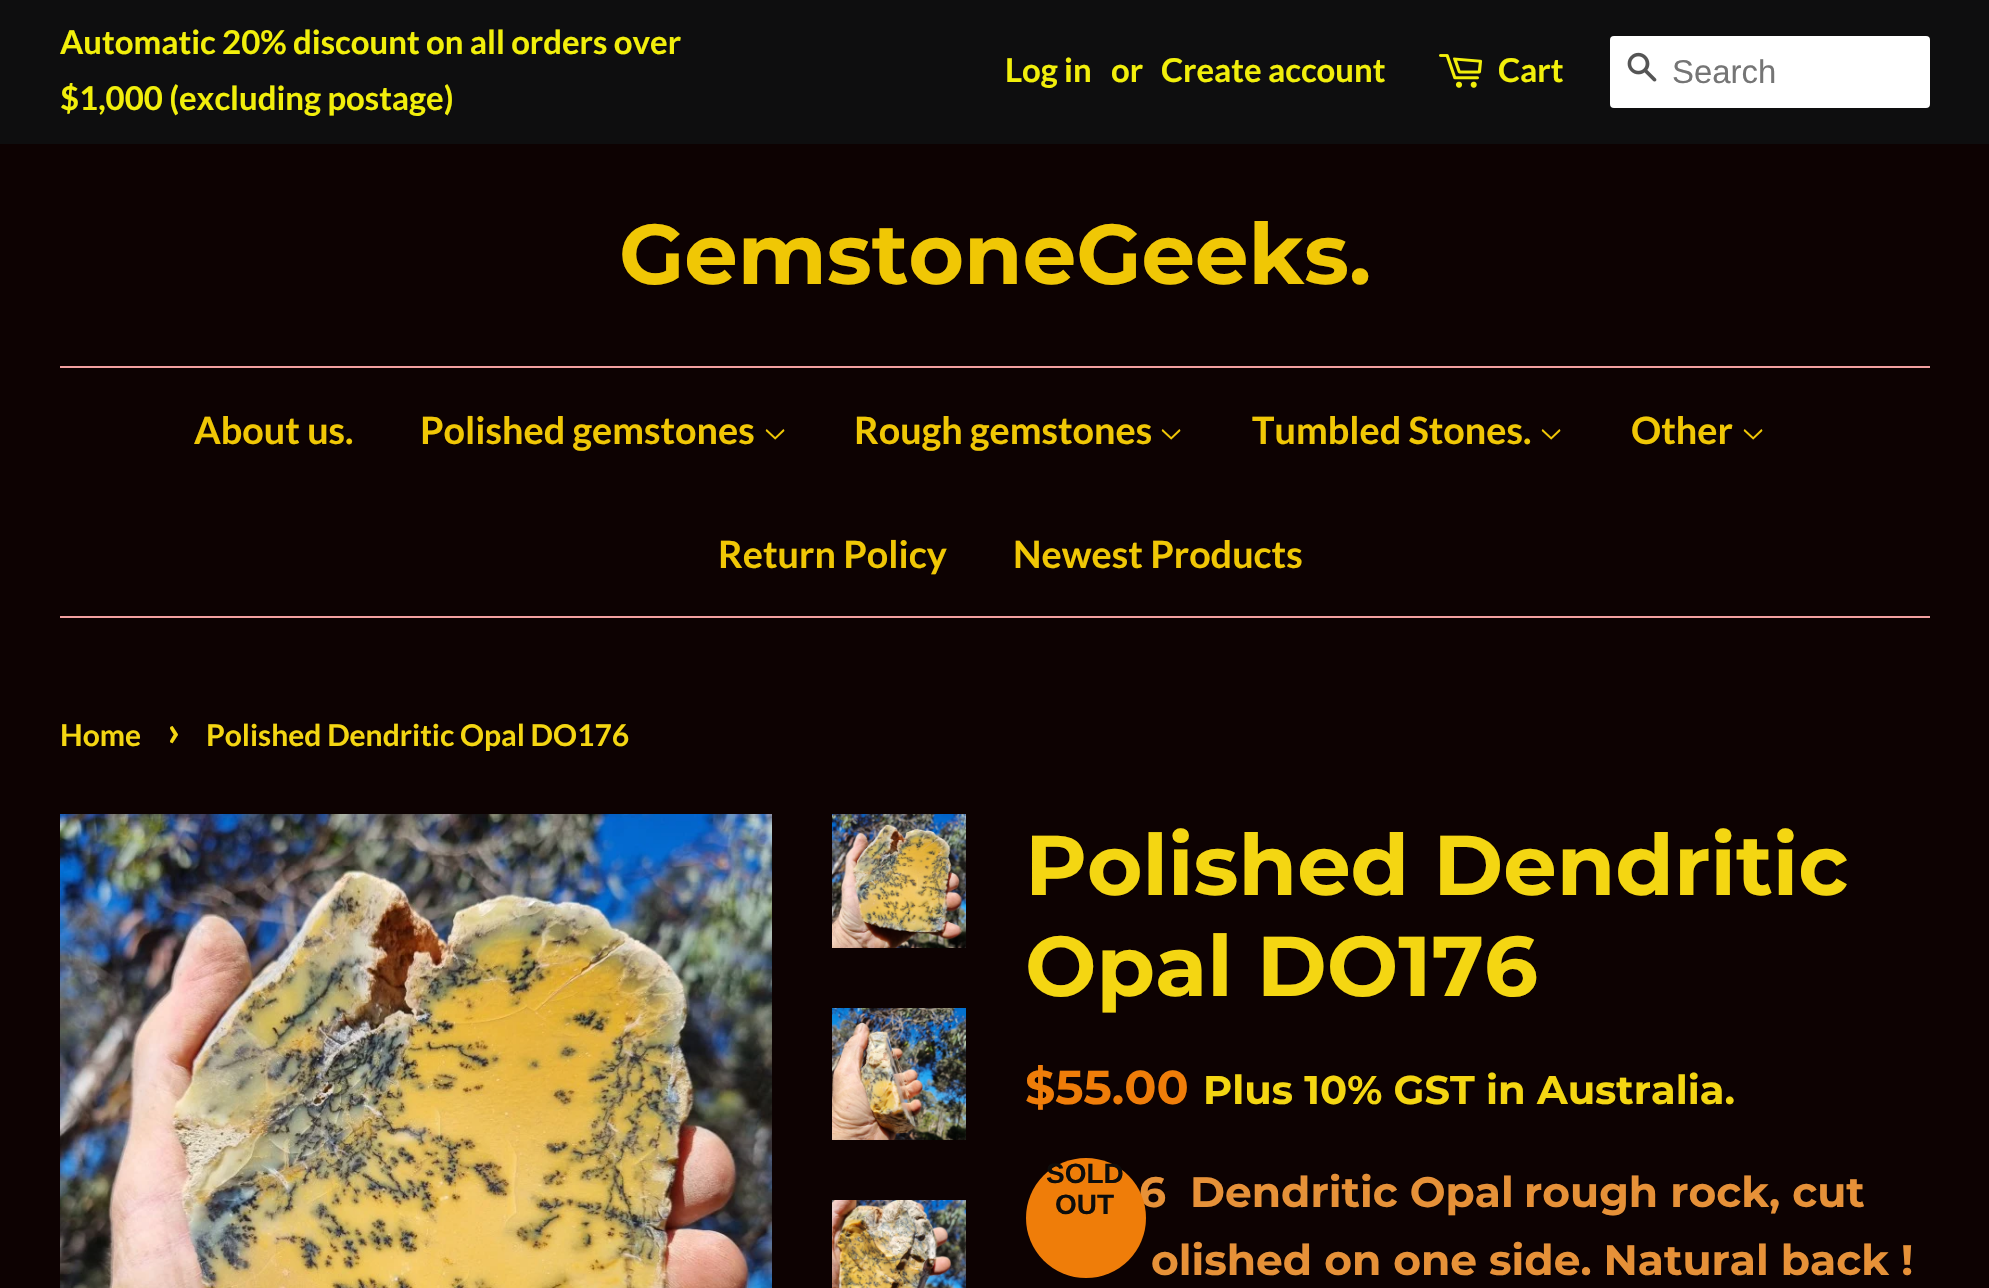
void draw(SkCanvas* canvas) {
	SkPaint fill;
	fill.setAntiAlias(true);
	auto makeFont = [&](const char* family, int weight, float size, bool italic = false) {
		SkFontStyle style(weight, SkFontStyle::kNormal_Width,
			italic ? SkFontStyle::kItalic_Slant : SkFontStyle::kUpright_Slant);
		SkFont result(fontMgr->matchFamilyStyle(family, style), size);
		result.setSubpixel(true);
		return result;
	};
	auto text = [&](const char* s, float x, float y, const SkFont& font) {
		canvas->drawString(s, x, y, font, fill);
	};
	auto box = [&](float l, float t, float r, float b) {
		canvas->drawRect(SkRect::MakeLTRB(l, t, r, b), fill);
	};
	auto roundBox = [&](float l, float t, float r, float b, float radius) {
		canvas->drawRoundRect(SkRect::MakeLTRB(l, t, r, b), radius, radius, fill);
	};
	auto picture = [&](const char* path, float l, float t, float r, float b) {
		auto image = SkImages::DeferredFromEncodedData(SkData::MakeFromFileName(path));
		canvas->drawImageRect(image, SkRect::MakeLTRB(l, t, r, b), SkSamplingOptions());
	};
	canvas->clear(0xFF0D0202);
	fill.setColor(0xFF0E0E0F);
	box(0, 0, 1989, 144);
	picture("image0.png", 1439, 54, 1483, 88);
	fill.setColor(0xFFFFFFFF);
	roundBox(1610, 36, 1930, 108, 4);
	picture("image1.png", 1627, 52, 1657, 82);
	fill.setColor(0xFFF2A0A0);
	box(60, 366, 1930, 368);
	box(60, 616, 1930, 618);
	picture("image2.png", 765, 429, 785, 440);
	picture("image2.png", 1161, 429, 1181, 440);
	picture("image2.png", 1541, 429, 1561, 440);
	picture("image2.png", 1743, 429, 1763, 440);
	picture("image3.png", 60, 814, 772, 1288);
	picture("image4.png", 832, 814, 966, 948);
	picture("image5.png", 832, 1008, 966, 1140);
	picture("image6.png", 832, 1200, 966, 1288);
	auto font1 = makeFont("Lato", 700, 32.9f);
	fill.setColor(0xFFF2EF0B);
	text("Automatic 20% discount on all orders over", 60, 54, font1);
	text("$1,000 (excluding postage)", 60, 110, font1);
	text("Log in", 1005, 82, font1);
	text("or", 1111, 82, font1);
	text("Create account", 1161, 82, font1);
	text("Cart", 1498, 82, font1);
	auto font2 = makeFont("Liberation Sans", 400, 32.9f);
	fill.setColor(0xFF757575);
	text("Search", 1672, 83, font2);
	auto font3 = makeFont("Montserrat", 100, 84.75f);
	fill.setColor(0xFFF0C705);
	text("GemstoneGeeks.", 619, 284, font3);
	auto font4 = makeFont("Lato", 700, 37.75f);
	text("About us.", 194, 444, font4);
	text("Polished gemstones", 420, 444, font4);
	text("Rough gemstones", 854, 444, font4);
	text("Tumbled Stones.", 1252, 444, font4);
	text("Other", 1631, 444, font4);
	text("Return Policy", 718, 568, font4);
	text("Newest Products", 1013, 568, font4);
	auto font5 = makeFont("Lato", 700, 30);
	fill.setColor(0xFFF4D612);
	text("Home", 60, 746, font5);
	auto font6 = makeFont("Lato", 700, 42);
	text("›", 167, 746, font6);
	text("Polished Dendritic Opal DO176", 206, 746, font5);
	text("Polished Dendritic", 1025, 895, font3);
	text("Opal DO176", 1025, 996, font3);
	auto font7 = makeFont("Montserrat", 100, 47.5f);
	fill.setColor(0xFFEF7D09);
	text("$55.00", 1025, 1104, font7);
	auto font8 = makeFont("Montserrat", 100, 40);
	fill.setColor(0xFFF4D612);
	text("Plus 10% GST in Australia.", 1203, 1104, font8);
	auto font9 = makeFont("Montserrat", 100, 42.4f);
	fill.setColor(0xFFE69138);
	text("6  Dendritic Opal", 1139, 1207, font9);
	fill.setColor(0xFFEF7D09);
	canvas->drawCircle(1086, 1218, 60, fill);
	auto font10 = makeFont("Liberation Sans", 700, 28);
	fill.setColor(0xFF0D0D0C);
	text("OUT", 1055, 1214, font10);
	text("SOLD", 1046, 1183, font10);
	fill.setColor(0xFFE69138);
	text("rough rock, cut", 1524, 1207, font9);
	text("olished on one side. Natural back !", 1151, 1275, font9);
}
